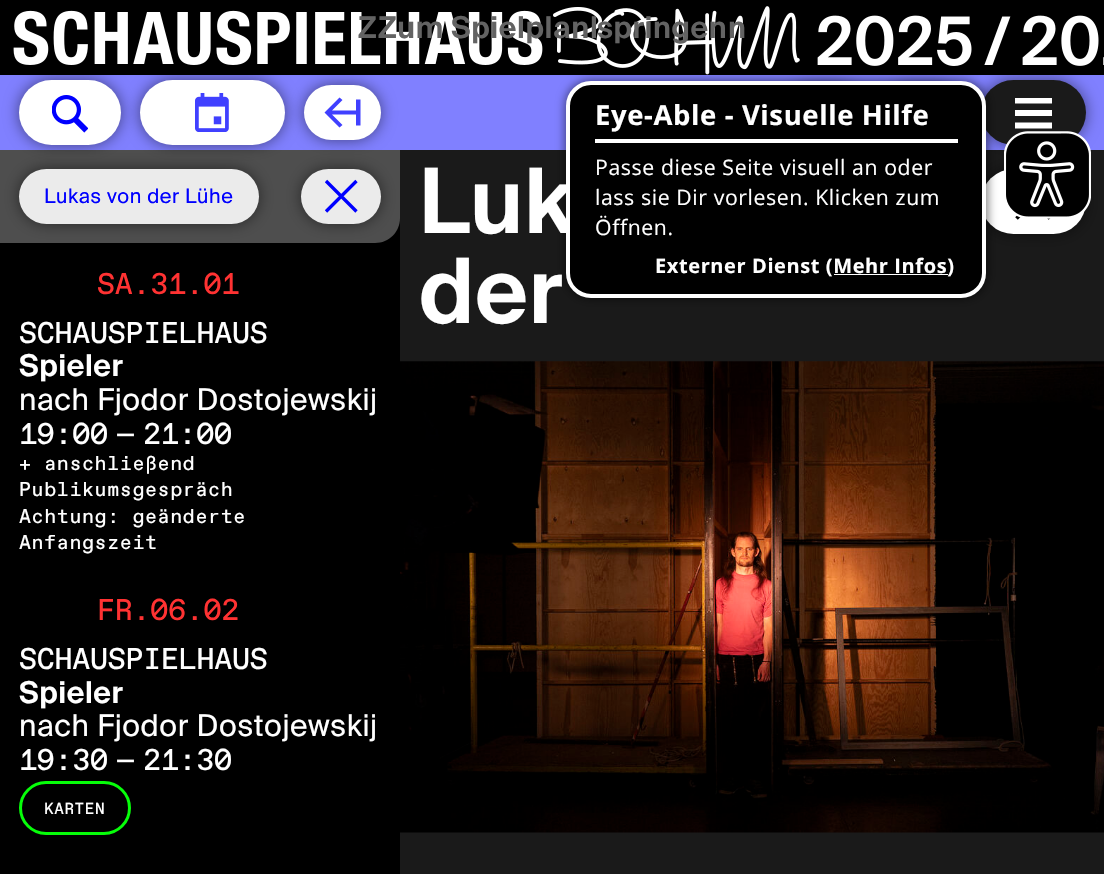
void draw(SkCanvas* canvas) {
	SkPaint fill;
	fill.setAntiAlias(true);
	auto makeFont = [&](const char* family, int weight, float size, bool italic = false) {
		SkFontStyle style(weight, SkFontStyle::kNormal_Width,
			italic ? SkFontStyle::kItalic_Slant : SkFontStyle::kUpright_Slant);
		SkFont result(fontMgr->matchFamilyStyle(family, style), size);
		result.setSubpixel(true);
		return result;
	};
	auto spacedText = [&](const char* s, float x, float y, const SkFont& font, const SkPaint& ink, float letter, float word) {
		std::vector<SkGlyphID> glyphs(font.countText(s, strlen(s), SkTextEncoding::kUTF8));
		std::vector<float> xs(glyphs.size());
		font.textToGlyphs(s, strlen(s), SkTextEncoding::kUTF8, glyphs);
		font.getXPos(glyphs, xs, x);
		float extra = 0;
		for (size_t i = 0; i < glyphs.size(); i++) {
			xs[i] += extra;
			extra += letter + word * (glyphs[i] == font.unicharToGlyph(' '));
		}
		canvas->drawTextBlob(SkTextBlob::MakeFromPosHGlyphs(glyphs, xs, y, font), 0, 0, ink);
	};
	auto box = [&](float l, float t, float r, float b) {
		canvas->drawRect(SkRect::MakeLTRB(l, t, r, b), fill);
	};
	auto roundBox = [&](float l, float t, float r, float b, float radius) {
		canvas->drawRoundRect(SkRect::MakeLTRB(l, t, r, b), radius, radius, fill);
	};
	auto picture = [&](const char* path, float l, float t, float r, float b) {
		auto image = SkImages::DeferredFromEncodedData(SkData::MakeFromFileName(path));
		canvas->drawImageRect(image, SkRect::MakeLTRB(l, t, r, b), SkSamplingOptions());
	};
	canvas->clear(0xFF1A1A1A);
	fill.setColor(0xFF000000);
	box(0, 218, 400, 874);
	fill.setColor(0xFF4E4E4E);
	canvas->drawPath(SkPathBuilder().moveTo(0, 150).lineTo(400, 150).lineTo(400, 218).cubicTo(400, 232, 389, 243, 375, 243).lineTo(0, 243).close().detach(), fill);
	fill.setColor(0x80000000);
	fill.setMaskFilter(SkMaskFilter::MakeBlur(kNormal_SkBlurStyle, 7.5f));
	canvas->drawRoundRect(SkRect::MakeLTRB(19, 169, 259, 224), 27.5f, 27.5f, fill);
	fill.setMaskFilter(nullptr);
	fill.setMaskFilter(SkMaskFilter::MakeBlur(kNormal_SkBlurStyle, 7.5f));
	canvas->drawRoundRect(SkRect::MakeLTRB(301, 169, 381, 224), 27.5f, 27.5f, fill);
	fill.setMaskFilter(nullptr);
	fill.setColor(0xFF8080FF);
	box(0, 75, 400, 150);
	fill.setColor(0x80000000);
	fill.setMaskFilter(SkMaskFilter::MakeBlur(kNormal_SkBlurStyle, 7.5f));
	canvas->drawRoundRect(SkRect::MakeLTRB(140, 80, 285, 145), 32.5f, 32.5f, fill);
	fill.setMaskFilter(nullptr);
	fill.setColor(0xFFFFFFFF);
	roundBox(140, 80, 285, 145, 32.5f);
	fill.setColor(0x80000000);
	fill.setMaskFilter(SkMaskFilter::MakeBlur(kNormal_SkBlurStyle, 7.5f));
	canvas->drawRoundRect(SkRect::MakeLTRB(19, 80, 121, 145), 32.5f, 32.5f, fill);
	fill.setMaskFilter(nullptr);
	fill.setMaskFilter(SkMaskFilter::MakeBlur(kNormal_SkBlurStyle, 7.5f));
	canvas->drawRoundRect(SkRect::MakeLTRB(304, 85, 381, 140), 27.5f, 27.5f, fill);
	fill.setMaskFilter(nullptr);
	fill.setColor(0xFF000000);
	box(0, 0, 1104, 75);
	picture("image0.png", 13, 6, 1104, 75);
	fill.setColor(0xFF8080FF);
	box(400, 75, 1104, 150);
	fill.setColor(0x80000000);
	fill.setMaskFilter(SkMaskFilter::MakeBlur(kNormal_SkBlurStyle, 7.5f));
	canvas->drawRoundRect(SkRect::MakeLTRB(883, 85, 963, 140), 27.5f, 27.5f, fill);
	fill.setMaskFilter(nullptr);
	fill.setMaskFilter(SkMaskFilter::MakeBlur(kNormal_SkBlurStyle, 7.5f));
	canvas->drawRoundRect(SkRect::MakeLTRB(981, 80, 1086, 145), 32.5f, 32.5f, fill);
	fill.setMaskFilter(nullptr);
	fill.setColor(0xFF1A1A1A);
	roundBox(981, 80, 1086, 145, 32.5f);
	fill.setColor(0x80000000);
	fill.setMaskFilter(SkMaskFilter::MakeBlur(kNormal_SkBlurStyle, 7.5f));
	canvas->drawRoundRect(SkRect::MakeLTRB(981, 169, 1086, 234), 32.5f, 32.5f, fill);
	fill.setMaskFilter(nullptr);
	fill.setColor(0xFFFFFFFF);
	roundBox(981, 169, 1086, 234, 32.5f);
	fill.setColor(0x80000000);
	fill.setMaskFilter(SkMaskFilter::MakeBlur(kNormal_SkBlurStyle, 5));
	canvas->drawRoundRect(SkRect::MakeLTRB(565, 80, 988, 299), 26, 26, fill);
	fill.setMaskFilter(nullptr);
	fill.setStyle(SkPaint::kStroke_Style);
	fill.setStrokeWidth(3.7f);
	fill.setColor(0xFF000000);
	canvas->drawPath(SkPathBuilder().moveTo(1016.5f, 185).lineTo(1050, 218.5f).moveTo(1050, 185).lineTo(1016.5f, 218.5f).detach(), fill);
	picture("image1.png", 1004, 131, 1091, 219);
	fill.setStyle(SkPaint::kFill_Style);
	fill.setColor(0x80000000);
	fill.setMaskFilter(SkMaskFilter::MakeBlur(kNormal_SkBlurStyle, 7.5f));
	canvas->drawRoundRect(SkRect::MakeLTRB(784, 85, 864, 140), 27.5f, 27.5f, fill);
	fill.setMaskFilter(nullptr);
	fill.setColor(0xFFFFFFFF);
	box(1015, 110, 1052, 116);
	canvas->save();
	canvas->clipRect(SkRect::MakeLTRB(1015, 98, 1052, 129));
	fill.setStyle(SkPaint::kStroke_Style);
	fill.setStrokeWidth(6.2f);
	canvas->drawPath(SkPathBuilder().moveTo(1052.5f, 100.5f).lineTo(1015, 100.5f).moveTo(1052.5f, 125.5f).lineTo(1015, 125.5f).detach(), fill);
	canvas->restore();
	fill.setStyle(SkPaint::kFill_Style);
	roundBox(19, 80, 121, 145, 32.5f);
	picture("image2.png", 52, 95, 88, 133);
	picture("image3.png", 195, 93, 229, 132);
	roundBox(304, 85, 381, 140, 27.5f);
	fill.setColor(0xFF4040FF);
	canvas->drawPath(SkPathBuilder().moveTo(339.5f, 97.5f).lineTo(324.5f, 112.5f).lineTo(339.5f, 127.5f).lineTo(342.5f, 125).lineTo(332, 114.5f).lineTo(356, 114.5f).lineTo(356, 125.5f).lineTo(360.5f, 125.5f).lineTo(360.5f, 99.5f).lineTo(356, 99.5f).lineTo(356, 110.5f).lineTo(332, 110.5f).lineTo(342.5f, 100).close().detach(), fill);
	fill.setColor(0xFFEBEBEB);
	roundBox(19, 169, 259, 224, 27.5f);
	roundBox(301, 169, 381, 224, 27.5f);
	fill.setStyle(SkPaint::kStroke_Style);
	fill.setStrokeWidth(3.3f);
	fill.setColor(0xFF0000FF);
	canvas->drawPath(SkPathBuilder().moveTo(326, 181).lineTo(356.5f, 211.5f).moveTo(356.5f, 181).lineTo(326, 211.5f).detach(), fill);
	fill.setStrokeWidth(3);
	fill.setColor(0xFF06FE09);
	canvas->drawRoundRect(SkRect::MakeLTRB(20.5f, 782.5f, 129.5f, 833.5f), 25.5f, 25.5f, fill);
	picture("image4.png", 400, 361, 1104, 833);
	auto font1 = makeFont("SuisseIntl", 600, 30);
	fill.setStyle(SkPaint::kFill_Style);
	fill.setColor(0xFF636363);
	spacedText("Zum Spielplan springen", 378, 38, font1, fill, 0.6f, 0);
	spacedText("Z", 358, 38, font1, fill, 0.6f, 0);
	spacedText("l", 590, 38, font1, fill, 0.6f, 0);
	spacedText("n", 728, 38, font1, fill, 0.6f, 0);
	auto font2 = makeFont("SuisseIntl", 400, 20);
	fill.setColor(0xFF0000FF);
	spacedText("Lukas von der Lühe", 44, 203, font2, fill, 0.6f, 0);
	auto font3 = makeFont("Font", 400, 30);
	fill.setColor(0xFFFF3232);
	spacedText("SA.31.01", 97, 294, font3, fill, -0.25f, 0);
	fill.setColor(0xFFFFFFFF);
	spacedText("SCHAUSPIELHAUS", 19, 343, font3, fill, -0.25f, 0);
	spacedText("Spieler", 19, 376, font1, fill, 0.6f, 0);
	auto font4 = makeFont("SuisseIntl", 400, 30);
	spacedText("nach Fjodor Dostojewskij", 19, 410, font4, fill, 0.6f, 0);
	spacedText("19:00 — 21:00", 19, 444, font3, fill, -0.25f, 0);
	auto font5 = makeFont("Font", 400, 20);
	spacedText("+ anschließend", 19, 470, font5, fill, 0.6f, 0);
	spacedText("Publikumsgespräch", 19, 496, font5, fill, 0.6f, 0);
	spacedText("Achtung: geänderte", 19, 523, font5, fill, 0.6f, 0);
	spacedText("Anfangszeit", 19, 549, font5, fill, 0.6f, 0);
	fill.setColor(0xFFFF3232);
	spacedText("FR.06.02", 97, 620, font3, fill, -0.25f, 0);
	fill.setColor(0xFFFFFFFF);
	spacedText("SCHAUSPIELHAUS", 19, 669, font3, fill, -0.25f, 0);
	spacedText("Spieler", 19, 703, font1, fill, 0.6f, 0);
	spacedText("nach Fjodor Dostojewskij", 19, 736, font4, fill, 0.6f, 0);
	spacedText("19:30 — 21:30", 19, 770, font3, fill, -0.25f, 0);
	auto font6 = makeFont("Font", 400, 16);
	spacedText("KARTEN", 44, 814, font6, fill, 0.6f, 0);
	auto font7 = makeFont("SuisseIntl", 600, 90);
	spacedText("Luk", 419, 233, font7, fill, 0.6f, 0);
	fill.setColor(0xFF000000);
	canvas->drawRoundRect(SkRect::MakeLTRB(568, 83, 984, 296), 23, 23, fill);
	fill.setStyle(SkPaint::kStroke_Style);
	fill.setStrokeWidth(4);
	fill.setColor(0xFFFFFFFF);
	canvas->drawRoundRect(SkRect::MakeLTRB(568, 83, 984, 296), 23, 23, fill);
	fill.setStyle(SkPaint::kFill_Style);
	box(834, 274, 948, 275);
	auto font8 = makeFont("Open Sans", 700, 20);
	spacedText("Externer Dienst (Mehr Infos)", 655, 273, font8, fill, 0.6f, 0);
	auto font9 = makeFont("Open Sans", 400, 21.25f);
	spacedText("Öffnen.", 595, 235, font9, fill, 0.6f, 0);
	spacedText("lass sie Dir vorlesen. Klicken zum", 595, 205, font9, fill, 0.6f, 0);
	spacedText("Passe diese Seite visuell an oder", 595, 175, font9, fill, 0.6f, 0);
	auto font10 = makeFont("Open Sans", 700, 27.5f);
	spacedText("Eye-Able - Visuelle Hilfe", 595, 125, font10, fill, 0.6f, 0);
	box(595, 139, 958, 143);
	spacedText("der", 419, 323, font7, fill, 0.6f, 0);
}
